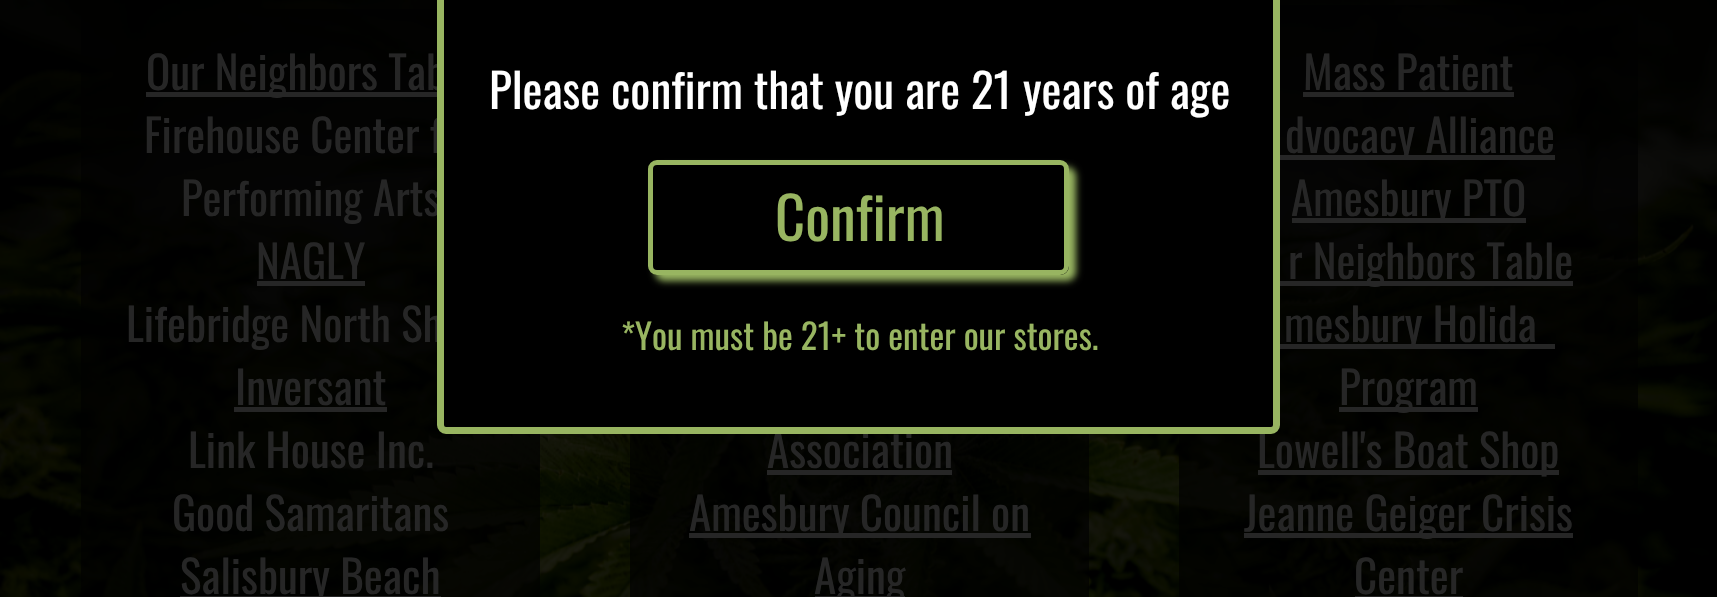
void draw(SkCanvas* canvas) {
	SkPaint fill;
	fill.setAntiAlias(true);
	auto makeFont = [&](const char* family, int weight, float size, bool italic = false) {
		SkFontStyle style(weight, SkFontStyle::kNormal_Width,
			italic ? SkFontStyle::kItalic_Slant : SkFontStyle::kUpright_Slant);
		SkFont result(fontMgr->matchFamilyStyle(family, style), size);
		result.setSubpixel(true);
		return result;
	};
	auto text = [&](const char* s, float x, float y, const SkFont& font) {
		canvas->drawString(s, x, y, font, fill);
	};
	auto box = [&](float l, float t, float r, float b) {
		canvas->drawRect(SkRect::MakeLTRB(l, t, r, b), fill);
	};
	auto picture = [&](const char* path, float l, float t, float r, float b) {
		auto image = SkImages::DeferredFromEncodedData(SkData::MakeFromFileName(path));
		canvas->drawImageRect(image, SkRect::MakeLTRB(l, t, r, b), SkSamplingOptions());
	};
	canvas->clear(0xFFFFFFFF);
	picture("image0.png", 0, 0, 1717, 597);
	fill.setColor(0xB3000000);
	box(81, 9, 540, 597);
	fill.setColor(0xFF262626);
	box(146, 92, 437, 97);
	box(257, 281, 365, 286);
	box(234, 407, 387, 412);
	box(180, 596, 441, 597);
	fill.setColor(0xB3000000);
	box(630, 434, 1089, 597);
	fill.setColor(0xFF262626);
	box(767, 470, 952, 475);
	box(689, 533, 1031, 538);
	box(815, 596, 905, 597);
	fill.setColor(0xB3000000);
	box(1179, 5, 1638, 597);
	fill.setColor(0xFF262626);
	box(1303, 92, 1514, 97);
	box(1280, 155, 1555, 160);
	box(1292, 218, 1526, 223);
	box(1280, 281, 1573, 286);
	box(1280, 344, 1555, 349);
	box(1339, 407, 1478, 412);
	box(1258, 470, 1559, 475);
	box(1244, 533, 1573, 538);
	box(1355, 596, 1463, 597);
	auto font1 = makeFont("Oswald", 400, 45);
	text("Our Neighbors Tab", 146, 90, font1);
	text("Firehouse Center f", 144, 153, font1);
	text("Performing Arts", 181, 216, font1);
	text("NAGLY", 256, 279, font1);
	text("Lifebridge North Sh", 126, 342, font1);
	text("Inversant", 235, 405, font1);
	text("Link House Inc.", 188, 468, font1);
	text("Good Samaritans", 172, 531, font1);
	text("Salisbury Beach", 180, 594, font1);
	text("Association", 767, 468, font1);
	text("Amesbury Council on", 689, 531, font1);
	text("Aging", 814, 594, font1);
	text("Mass Patient", 1303, 90, font1);
	text("dvocacy Alliance", 1285, 153, font1);
	text("Amesbury PTO", 1291, 216, font1);
	text("r Neighbors Table", 1288, 279, font1);
	text("mesbury Holida", 1284, 342, font1);
	text("Program", 1339, 405, font1);
	text("Lowell's Boat Shop", 1257, 468, font1);
	text("Jeanne Geiger Crisis", 1244, 531, font1);
	text("Center", 1354, 594, font1);
	fill.setColor(0xFF000000);
	canvas->drawPath(SkPathBuilder().moveTo(437, 0).lineTo(1280, 0).lineTo(1280, 425).cubicTo(1280, 430, 1276, 434, 1271, 434).lineTo(446, 434).cubicTo(441, 434, 437, 430, 437, 425).close().detach(), fill);
	fill.setStyle(SkPaint::kStroke_Style);
	fill.setStrokeWidth(7);
	fill.setColor(0xFF98B561);
	canvas->drawRoundRect(SkRect::MakeLTRB(440.5f, -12.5f, 1276.5f, 430.5f), 5.5f, 5.5f, fill);
	auto font2 = makeFont("Oswald", 400, 47.25f);
	fill.setStyle(SkPaint::kFill_Style);
	fill.setColor(0xFFFFFFFF);
	text("Please confirm that you are 21 years of age", 489, 109, font2);
	canvas->save();
	canvas->clipPath(SkPathBuilder(SkPathFillType::kEvenOdd).moveTo(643, 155).lineTo(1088, 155).lineTo(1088, 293).lineTo(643, 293).close().moveTo(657, 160).lineTo(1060, 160).cubicTo(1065, 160, 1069, 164, 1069, 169).lineTo(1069, 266).cubicTo(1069, 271, 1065, 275, 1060, 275).lineTo(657, 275).cubicTo(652, 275, 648, 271, 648, 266).lineTo(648, 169).cubicTo(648, 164, 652, 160, 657, 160).close().detach(), true);
	fill.setColor(0xFF98B561);
	fill.setMaskFilter(SkMaskFilter::MakeBlur(kNormal_SkBlurStyle, 3.5f));
	canvas->drawRoundRect(SkRect::MakeLTRB(655, 167, 1076, 281), 9, 9, fill);
	fill.setMaskFilter(nullptr);
	canvas->restore();
	fill.setStyle(SkPaint::kStroke_Style);
	fill.setStrokeWidth(5);
	canvas->drawRoundRect(SkRect::MakeLTRB(650.5f, 162.5f, 1066.5f, 272.5f), 6.5f, 6.5f, fill);
	auto font3 = makeFont("Oswald", 400, 58.5f);
	fill.setStyle(SkPaint::kFill_Style);
	text("Confirm", 775, 241, font3);
	auto font4 = makeFont("Oswald", 400, 35.25f);
	text("*You must be 21+ to enter our stores.", 621, 350, font4);
}
